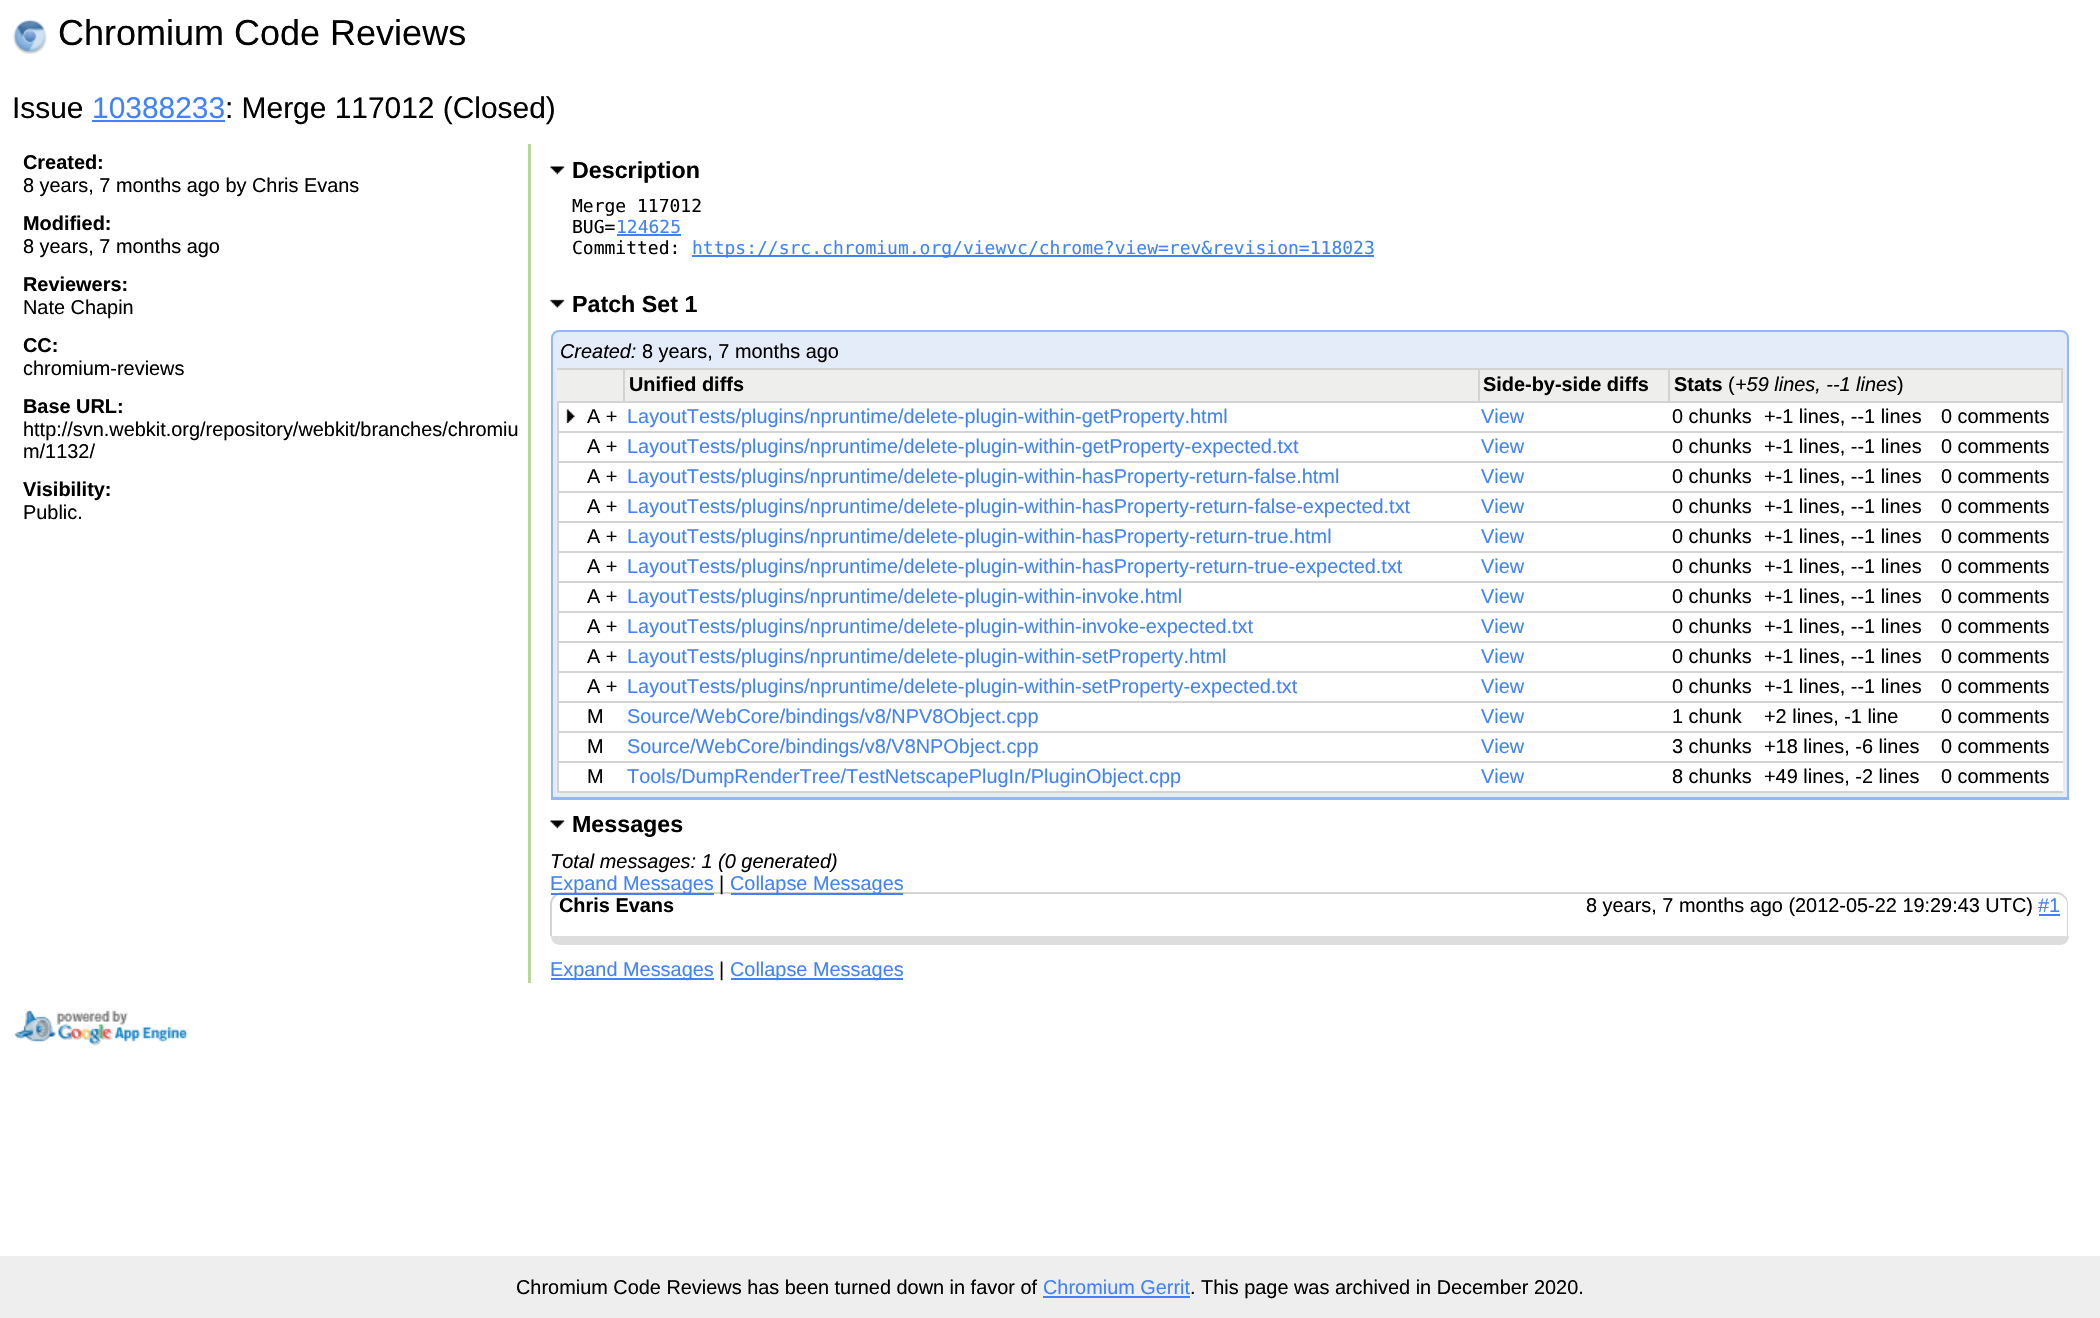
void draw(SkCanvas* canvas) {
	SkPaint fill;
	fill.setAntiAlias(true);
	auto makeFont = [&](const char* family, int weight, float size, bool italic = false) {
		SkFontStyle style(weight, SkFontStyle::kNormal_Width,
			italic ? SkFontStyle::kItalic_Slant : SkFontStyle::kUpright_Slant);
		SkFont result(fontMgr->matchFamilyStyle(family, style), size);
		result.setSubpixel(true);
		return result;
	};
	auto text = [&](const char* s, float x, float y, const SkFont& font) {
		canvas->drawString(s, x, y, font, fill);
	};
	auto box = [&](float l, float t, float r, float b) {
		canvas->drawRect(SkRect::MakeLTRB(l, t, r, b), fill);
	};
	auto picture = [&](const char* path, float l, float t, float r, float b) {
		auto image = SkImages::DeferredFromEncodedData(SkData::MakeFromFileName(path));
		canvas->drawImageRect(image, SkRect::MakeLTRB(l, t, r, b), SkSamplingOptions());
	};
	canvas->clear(0xFFFFFFFF);
	picture("image0.png", 13, 19, 47, 54);
	fill.setColor(0xFF4182FA);
	box(92, 120, 225, 122);
	fill.setColor(0xFFB7D993);
	box(528, 144, 531, 983);
	picture("image1.png", 550, 166, 565, 175);
	fill.setColor(0xFF4182FA);
	box(617, 234, 681, 236);
	box(692, 255, 1374, 257);
	picture("image2.png", 550, 299, 565, 308);
	fill.setColor(0xFFE5ECF9);
	canvas->drawPath(SkPathBuilder().moveTo(558, 332).lineTo(2061, 332).cubicTo(2064.5f, 332, 2067, 334.5f, 2067, 338).lineTo(2067, 797).lineTo(552, 797).lineTo(552, 338).cubicTo(552, 334.5f, 554.5f, 332, 558, 332).close().detach(), fill);
	fill.setStyle(SkPaint::kStroke_Style);
	fill.setStrokeWidth(2);
	fill.setColor(0xFF93B7FA);
	canvas->drawPath(SkPathBuilder().moveTo(559, 331).lineTo(2061, 331).cubicTo(2065, 331, 2068, 334, 2068, 338).lineTo(2068, 799).lineTo(552, 799).lineTo(552, 338).cubicTo(552, 334, 555, 331, 559, 331).close().detach(), fill);
	fill.setStyle(SkPaint::kFill_Style);
	box(551, 797, 2069, 798);
	fill.setColor(0xFFFFFFFF);
	box(559, 403, 2063, 791);
	fill.setColor(0xFFD3D3D3);
	box(557, 401, 2063, 403);
	fill.setColor(0xFFEEEEEC);
	box(557, 370, 623, 401);
	fill.setColor(0xFFD3D3D3);
	box(557, 368, 2063, 370);
	box(623, 368, 625, 402);
	fill.setColor(0xFFEEEEEC);
	box(625, 370, 1478, 401);
	fill.setColor(0xFFD3D3D3);
	box(1478, 368, 1480, 402);
	fill.setColor(0xFFEEEEEC);
	box(1480, 370, 1668, 401);
	fill.setColor(0xFFD3D3D3);
	box(1668, 368, 1670, 402);
	fill.setColor(0xFFEEEEEC);
	box(1670, 370, 2061, 401);
	fill.setColor(0xFFD3D3D3);
	box(2061, 368, 2063, 402);
	box(557, 431, 2063, 433);
	picture("image3.png", 566, 409, 575, 423);
	box(557, 461, 2063, 463);
	box(557, 491, 2063, 493);
	box(557, 521, 2063, 523);
	box(557, 551, 2063, 553);
	box(557, 581, 2063, 583);
	box(557, 611, 2063, 613);
	box(557, 641, 2063, 643);
	box(557, 671, 2063, 673);
	box(557, 701, 2063, 703);
	box(557, 731, 2063, 733);
	box(557, 761, 2063, 763);
	box(557, 791, 2063, 793);
	box(557, 401, 559, 792);
	picture("image1.png", 550, 820, 565, 829);
	canvas->drawPath(SkPathBuilder(SkPathFillType::kEvenOdd).moveTo(562, 892).lineTo(2056, 892).cubicTo(2063, 892, 2068, 898, 2068, 904).lineTo(2068, 936).lineTo(550, 936).lineTo(550, 904).cubicTo(550, 898, 556, 892, 562, 892).close().moveTo(562, 894).lineTo(2056, 894).cubicTo(2062, 894, 2067, 899, 2067, 904).lineTo(2067, 936).lineTo(552, 936).lineTo(552, 904).cubicTo(552, 899, 557, 894, 562, 894).close().detach(), fill);
	fill.setColor(0xFF4182FA);
	box(551, 893, 714, 895);
	box(731, 893, 903, 895);
	box(2039, 914, 2060, 916);
	fill.setColor(0xFFDDDDDD);
	canvas->drawPath(SkPathBuilder().moveTo(551, 936).lineTo(2069, 936).cubicTo(2069, 941, 2065, 945, 2060, 945).lineTo(560, 945).cubicTo(555, 945, 551, 941, 551, 936).close().detach(), fill);
	fill.setColor(0xFF4182FA);
	box(551, 978, 714, 980);
	box(731, 978, 903, 980);
	picture("image4.png", 14, 1010, 188, 1046);
	fill.setColor(0xFFEEEEEE);
	box(0, 1256, 2100, 1318);
	fill.setColor(0xFF4182FA);
	box(1043, 1296, 1190, 1298);
	auto font1 = makeFont("Liberation Sans", 400, 36);
	fill.setColor(0xFF000000);
	text("Chromium Code Reviews", 58, 45, font1);
	auto font2 = makeFont("Liberation Sans", 400, 29.9f);
	text("Issue", 12, 118, font2);
	fill.setColor(0xFF4182FA);
	text("10388233", 92, 118, font2);
	fill.setColor(0xFF000000);
	text(": Merge 117012 (Closed)", 225, 118, font2);
	auto font3 = makeFont("Liberation Sans", 700, 19.9f);
	text("Created:", 23, 169, font3);
	auto font4 = makeFont("Liberation Sans", 400, 19.9f);
	text("8 years, 7 months ago by Chris Evans", 23, 192, font4);
	text("Modified:", 23, 230, font3);
	text("8 years, 7 months ago", 23, 253, font4);
	text("Reviewers:", 23, 291, font3);
	text("Nate Chapin", 23, 314, font4);
	text("CC:", 23, 352, font3);
	text("chromium-reviews", 23, 375, font4);
	text("Base URL:", 23, 413, font3);
	text("http://svn.webkit.org/repository/webkit/branches/chromiu", 23, 436, font4);
	text("m/1132/", 23, 458, font4);
	text("Visibility:", 23, 496, font3);
	text("Public.", 23, 519, font4);
	auto font5 = makeFont("Liberation Sans", 700, 23.25f);
	text("Description", 572, 178, font5);
	auto font6 = makeFont("DejaVu Sans Mono", 400, 18);
	text("Merge 117012", 572, 212, font6);
	text("BUG=", 572, 233, font6);
	fill.setColor(0xFF4182FA);
	text("124625", 616, 233, font6);
	fill.setColor(0xFF000000);
	text("Committed:", 572, 254, font6);
	fill.setColor(0xFF4182FA);
	text("https://src.chromium.org/viewvc/chrome?view=rev&revision=118023", 692, 254, font6);
	fill.setColor(0xFF000000);
	text("Patch Set 1", 572, 312, font5);
	auto font7 = makeFont("Liberation Sans", 400, 19.9f, true);
	text("Created:", 560, 358, font7);
	text("8 years, 7 months ago", 642, 358, font4);
	text("Unified diffs", 629, 391, font3);
	text("Side-by-side diffs", 1483, 391, font3);
	text("Stats", 1674, 391, font3);
	text("(", 1728, 391, font4);
	text("+59 lines, --1 lines", 1735, 391, font7);
	text(")", 1897, 391, font4);
	text("A +", 587, 423, font4);
	fill.setColor(0xFF4182FA);
	text("LayoutTests/plugins/npruntime/delete-plugin-within-getProperty.html", 627, 423, font4);
	text("View", 1481, 423, font4);
	fill.setColor(0xFF000000);
	text("0 chunks", 1672, 423, font4);
	text("+-1 lines, --1 lines", 1764, 423, font4);
	text("0 comments", 1941, 423, font4);
	text("A +", 587, 453, font4);
	fill.setColor(0xFF4182FA);
	text("LayoutTests/plugins/npruntime/delete-plugin-within-getProperty-expected.txt", 627, 453, font4);
	text("View", 1481, 453, font4);
	fill.setColor(0xFF000000);
	text("0 chunks", 1672, 453, font4);
	text("+-1 lines, --1 lines", 1764, 453, font4);
	text("0 comments", 1941, 453, font4);
	text("A +", 587, 483, font4);
	fill.setColor(0xFF4182FA);
	text("LayoutTests/plugins/npruntime/delete-plugin-within-hasProperty-return-false.html", 627, 483, font4);
	text("View", 1481, 483, font4);
	fill.setColor(0xFF000000);
	text("0 chunks", 1672, 483, font4);
	text("+-1 lines, --1 lines", 1764, 483, font4);
	text("0 comments", 1941, 483, font4);
	text("A +", 587, 513, font4);
	fill.setColor(0xFF4182FA);
	text("LayoutTests/plugins/npruntime/delete-plugin-within-hasProperty-return-false-expected.txt", 627, 513, font4);
	text("View", 1481, 513, font4);
	fill.setColor(0xFF000000);
	text("0 chunks", 1672, 513, font4);
	text("+-1 lines, --1 lines", 1764, 513, font4);
	text("0 comments", 1941, 513, font4);
	text("A +", 587, 543, font4);
	fill.setColor(0xFF4182FA);
	text("LayoutTests/plugins/npruntime/delete-plugin-within-hasProperty-return-true.html", 627, 543, font4);
	text("View", 1481, 543, font4);
	fill.setColor(0xFF000000);
	text("0 chunks", 1672, 543, font4);
	text("+-1 lines, --1 lines", 1764, 543, font4);
	text("0 comments", 1941, 543, font4);
	text("A +", 587, 573, font4);
	fill.setColor(0xFF4182FA);
	text("LayoutTests/plugins/npruntime/delete-plugin-within-hasProperty-return-true-expected.txt", 627, 573, font4);
	text("View", 1481, 573, font4);
	fill.setColor(0xFF000000);
	text("0 chunks", 1672, 573, font4);
	text("+-1 lines, --1 lines", 1764, 573, font4);
	text("0 comments", 1941, 573, font4);
	text("A +", 587, 603, font4);
	fill.setColor(0xFF4182FA);
	text("LayoutTests/plugins/npruntime/delete-plugin-within-invoke.html", 627, 603, font4);
	text("View", 1481, 603, font4);
	fill.setColor(0xFF000000);
	text("0 chunks", 1672, 603, font4);
	text("+-1 lines, --1 lines", 1764, 603, font4);
	text("0 comments", 1941, 603, font4);
	text("A +", 587, 633, font4);
	fill.setColor(0xFF4182FA);
	text("LayoutTests/plugins/npruntime/delete-plugin-within-invoke-expected.txt", 627, 633, font4);
	text("View", 1481, 633, font4);
	fill.setColor(0xFF000000);
	text("0 chunks", 1672, 633, font4);
	text("+-1 lines, --1 lines", 1764, 633, font4);
	text("0 comments", 1941, 633, font4);
	text("A +", 587, 663, font4);
	fill.setColor(0xFF4182FA);
	text("LayoutTests/plugins/npruntime/delete-plugin-within-setProperty.html", 627, 663, font4);
	text("View", 1481, 663, font4);
	fill.setColor(0xFF000000);
	text("0 chunks", 1672, 663, font4);
	text("+-1 lines, --1 lines", 1764, 663, font4);
	text("0 comments", 1941, 663, font4);
	text("A +", 587, 693, font4);
	fill.setColor(0xFF4182FA);
	text("LayoutTests/plugins/npruntime/delete-plugin-within-setProperty-expected.txt", 627, 693, font4);
	text("View", 1481, 693, font4);
	fill.setColor(0xFF000000);
	text("0 chunks", 1672, 693, font4);
	text("+-1 lines, --1 lines", 1764, 693, font4);
	text("0 comments", 1941, 693, font4);
	text("M", 587, 723, font4);
	fill.setColor(0xFF4182FA);
	text("Source/WebCore/bindings/v8/NPV8Object.cpp", 627, 723, font4);
	text("View", 1481, 723, font4);
	fill.setColor(0xFF000000);
	text("1 chunk", 1672, 723, font4);
	text("+2 lines, -1 line", 1764, 723, font4);
	text("0 comments", 1941, 723, font4);
	text("M", 587, 753, font4);
	fill.setColor(0xFF4182FA);
	text("Source/WebCore/bindings/v8/V8NPObject.cpp", 627, 753, font4);
	text("View", 1481, 753, font4);
	fill.setColor(0xFF000000);
	text("3 chunks", 1672, 753, font4);
	text("+18 lines, -6 lines", 1764, 753, font4);
	text("0 comments", 1941, 753, font4);
	text("M", 587, 783, font4);
	fill.setColor(0xFF4182FA);
	text("Tools/DumpRenderTree/TestNetscapePlugIn/PluginObject.cpp", 627, 783, font4);
	text("View", 1481, 783, font4);
	fill.setColor(0xFF000000);
	text("8 chunks", 1672, 783, font4);
	text("+49 lines, -2 lines", 1764, 783, font4);
	text("0 comments", 1941, 783, font4);
	text("Messages", 572, 832, font5);
	text("Total messages: 1 (0 generated)", 550, 868, font7);
	fill.setColor(0xFF4182FA);
	text("Expand Messages", 550, 890, font4);
	fill.setColor(0xFF000000);
	text("|", 719, 890, font4);
	fill.setColor(0xFF4182FA);
	text("Collapse Messages", 730, 890, font4);
	fill.setColor(0xFF000000);
	text("Chris Evans", 559, 912, font3);
	text("8 years, 7 months ago (2012-05-22 19:29:43 UTC)", 1586, 912, font4);
	fill.setColor(0xFF4182FA);
	text("#1", 2038, 912, font4);
	text("Expand Messages", 550, 976, font4);
	fill.setColor(0xFF000000);
	text("|", 719, 976, font4);
	fill.setColor(0xFF4182FA);
	text("Collapse Messages", 730, 976, font4);
	fill.setColor(0xFF000000);
	text("Chromium Code Reviews has been turned down in favor of", 516, 1294, font4);
	fill.setColor(0xFF4182FA);
	text("Chromium Gerrit", 1043, 1294, font4);
	fill.setColor(0xFF000000);
	text(". This page was archived in December 2020.", 1190, 1294, font4);
}
